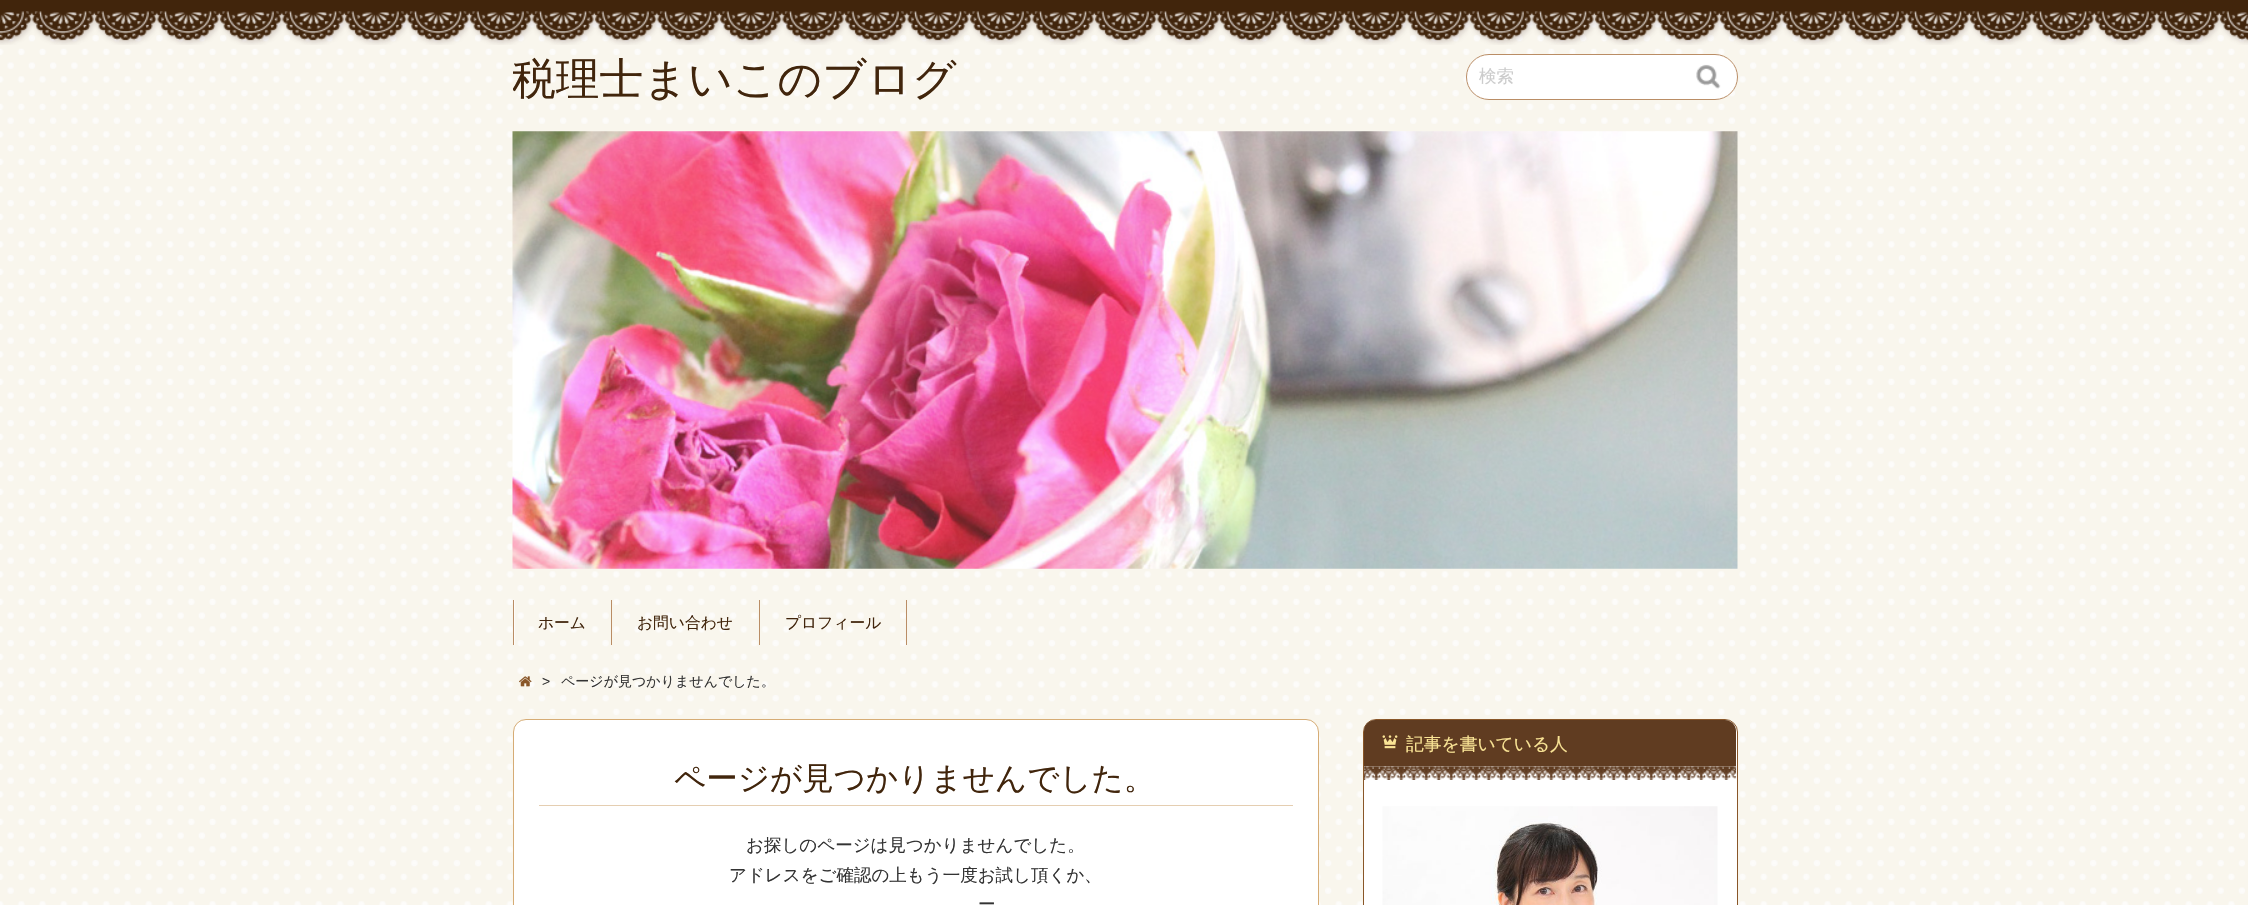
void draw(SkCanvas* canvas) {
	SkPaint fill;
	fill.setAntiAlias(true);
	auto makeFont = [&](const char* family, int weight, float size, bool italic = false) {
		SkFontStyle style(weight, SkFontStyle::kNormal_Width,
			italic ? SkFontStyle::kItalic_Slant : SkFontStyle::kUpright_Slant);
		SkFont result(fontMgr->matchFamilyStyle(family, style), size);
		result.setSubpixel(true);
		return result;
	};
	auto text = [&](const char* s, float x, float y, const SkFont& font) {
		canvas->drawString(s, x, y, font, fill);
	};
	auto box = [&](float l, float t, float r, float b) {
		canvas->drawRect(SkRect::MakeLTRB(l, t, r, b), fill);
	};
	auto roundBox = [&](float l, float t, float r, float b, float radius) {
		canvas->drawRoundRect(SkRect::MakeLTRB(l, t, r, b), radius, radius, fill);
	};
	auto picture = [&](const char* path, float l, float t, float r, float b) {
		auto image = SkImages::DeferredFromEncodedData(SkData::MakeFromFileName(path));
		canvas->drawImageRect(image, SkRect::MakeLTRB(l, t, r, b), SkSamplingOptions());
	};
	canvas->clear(0xFFFFFFFF);
	picture("image0.png", 0, 11, 2248, 905);
	picture("image1.png", 0, 0, 2248, 45);
	fill.setColor(0xFFFFFFFF);
	roundBox(1466, 54, 1738, 100, 23);
	picture("image2.png", 1696, 64, 1721, 89);
	fill.setStyle(SkPaint::kStroke_Style);
	fill.setStrokeWidth(1);
	fill.setColor(0xFFBA8D65);
	canvas->drawRoundRect(SkRect::MakeLTRB(1466.5f, 54.5f, 1737.5f, 99.5f), 22.5f, 22.5f, fill);
	picture("image3.png", 512, 131, 1738, 569);
	fill.setStyle(SkPaint::kFill_Style);
	fill.setColor(0xFFFEFDFB);
	box(514, 600, 515, 645);
	fill.setColor(0xFFBA8D65);
	box(611, 600, 612, 645);
	box(513, 600, 514, 645);
	box(759, 600, 760, 645);
	box(906, 600, 907, 645);
	picture("image4.png", 519, 676, 532, 687);
	fill.setColor(0xFFFFFFFF);
	canvas->drawRoundRect(SkRect::MakeLTRB(1363.5f, 719.5f, 1737.5f, 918.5f), 12.5f, 12.5f, fill);
	fill.setStyle(SkPaint::kStroke_Style);
	fill.setColor(0xFF895628);
	canvas->drawRoundRect(SkRect::MakeLTRB(1363.5f, 719.5f, 1737.5f, 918.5f), 12.5f, 12.5f, fill);
	fill.setStyle(SkPaint::kFill_Style);
	fill.setColor(0xFF603C21);
	canvas->drawPath(SkPathBuilder().moveTo(1375, 720).lineTo(1725, 720).cubicTo(1731, 720, 1736, 725, 1736, 731).lineTo(1736, 766).lineTo(1364, 766).lineTo(1364, 731).cubicTo(1364, 725, 1369, 720, 1375, 720).close().detach(), fill);
	picture("image5.png", 1382, 735, 1398, 749);
	picture("image6.png", 1364, 766, 1737, 780);
	picture("image7.png", 1382, 806, 1718, 905);
	fill.setColor(0xFFFFFFFF);
	canvas->drawRoundRect(SkRect::MakeLTRB(513.5f, 719.5f, 1318.5f, 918.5f), 12.5f, 12.5f, fill);
	fill.setStyle(SkPaint::kStroke_Style);
	fill.setColor(0xFFD6AC75);
	canvas->drawRoundRect(SkRect::MakeLTRB(513.5f, 719.5f, 1318.5f, 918.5f), 12.5f, 12.5f, fill);
	fill.setStyle(SkPaint::kFill_Style);
	fill.setColor(0xFFE5CEB1);
	box(539, 805, 1293, 806);
	canvas->save();
	canvas->clipRect(SkRect::MakeLTRB(513, 56, 1738, 113));
	auto font1 = makeFont("WenQuanYi Zen Hei", 500, 43.75f);
	fill.setColor(0xFF41250C);
	text("税理士まいこのブログ", 512, 94, font1);
	canvas->restore();
	auto font2 = makeFont("WenQuanYi Zen Hei", 500, 17.5f);
	fill.setColor(0xFFCCCCCC);
	text("検索", 1479, 82, font2);
	auto font3 = makeFont("WenQuanYi Zen Hei", 500, 15.75f);
	fill.setColor(0xFF41250C);
	text("ホーム", 538, 628, font3);
	text("お問い合わせ", 637, 628, font3);
	text("プロフィール", 785, 628, font3);
	auto font4 = makeFont("Liberation Sans", 400, 14);
	fill.setColor(0xFF333333);
	text(">", 542, 686, font4);
	auto font5 = makeFont("WenQuanYi Zen Hei", 500, 14);
	text("ページが見つかりませんでした。", 561, 686, font5);
	auto font6 = makeFont("WenQuanYi Zen Hei", 500, 17.75f);
	fill.setColor(0xFFFAE495);
	text("記事を書いている人", 1406, 750, font6);
	auto font7 = makeFont("WenQuanYi Zen Hei", 500, 31.5f);
	fill.setColor(0xFF41250C);
	text("ページが見つかりませんでした。", 674, 789, font7);
	fill.setColor(0xFF333333);
	text("お探しのページは見つかりませんでした。", 746, 851, font2);
	text("アドレスをご確認の上もう一度お試し頂くか、", 729, 881, font2);
	text("ー", 978, 910, font2);
}
